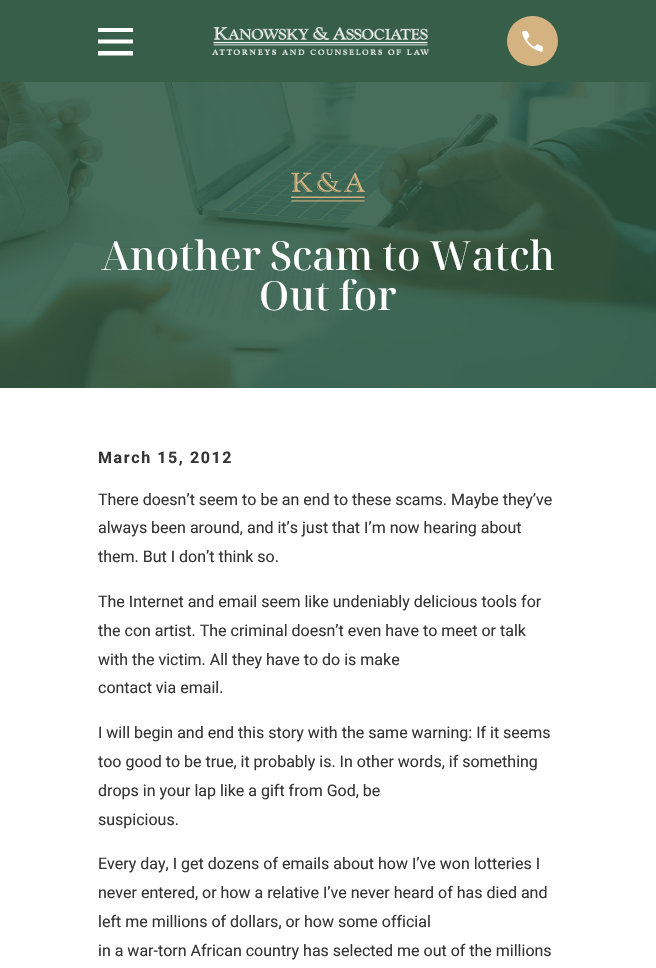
void draw(SkCanvas* canvas) {
	SkPaint fill;
	fill.setAntiAlias(true);
	auto makeFont = [&](const char* family, int weight, float size, bool italic = false) {
		SkFontStyle style(weight, SkFontStyle::kNormal_Width,
			italic ? SkFontStyle::kItalic_Slant : SkFontStyle::kUpright_Slant);
		SkFont result(fontMgr->matchFamilyStyle(family, style), size);
		result.setSubpixel(true);
		return result;
	};
	auto text = [&](const char* s, float x, float y, const SkFont& font) {
		canvas->drawString(s, x, y, font, fill);
	};
	auto spacedText = [&](const char* s, float x, float y, const SkFont& font, const SkPaint& ink, float letter, float word) {
		std::vector<SkGlyphID> glyphs(font.countText(s, strlen(s), SkTextEncoding::kUTF8));
		std::vector<float> xs(glyphs.size());
		font.textToGlyphs(s, strlen(s), SkTextEncoding::kUTF8, glyphs);
		font.getXPos(glyphs, xs, x);
		float extra = 0;
		for (size_t i = 0; i < glyphs.size(); i++) {
			xs[i] += extra;
			extra += letter + word * (glyphs[i] == font.unicharToGlyph(' '));
		}
		canvas->drawTextBlob(SkTextBlob::MakeFromPosHGlyphs(glyphs, xs, y, font), 0, 0, ink);
	};
	auto box = [&](float l, float t, float r, float b) {
		canvas->drawRect(SkRect::MakeLTRB(l, t, r, b), fill);
	};
	auto roundBox = [&](float l, float t, float r, float b, float radius) {
		canvas->drawRoundRect(SkRect::MakeLTRB(l, t, r, b), radius, radius, fill);
	};
	auto picture = [&](const char* path, float l, float t, float r, float b) {
		auto image = SkImages::DeferredFromEncodedData(SkData::MakeFromFileName(path));
		canvas->drawImageRect(image, SkRect::MakeLTRB(l, t, r, b), SkSamplingOptions());
	};
	canvas->clear(0xFFFFFFFF);
	fill.setColor(0xFF375E48);
	box(0, 0, 656, 82);
	fill.setColor(0xFFFFFFFF);
	canvas->drawPath(SkPathBuilder().moveTo(98, 28).lineTo(98, 32).lineTo(133, 32).lineTo(133, 28).close().moveTo(98, 39.5f).lineTo(98, 43.5f).lineTo(133, 43.5f).lineTo(133, 39.5f).close().moveTo(98, 51).lineTo(98, 55.5f).lineTo(133, 55.5f).lineTo(133, 51).close().detach(), fill);
	picture("image0.png", 212, 27, 429, 55);
	fill.setColor(0xFFD5B381);
	roundBox(507, 16, 558, 66, 25);
	picture("image1.png", 522, 31, 543, 52);
	picture("image2.png", 0, 82, 656, 388);
	picture("image3.png", 291, 172, 365, 202);
	auto font1 = makeFont("Noto Serif Display", 500, 40);
	fill.setColor(0xFFFFFFFF);
	text("Another Scam to Watch", 101, 270, font1);
	text("Out for", 259, 310, font1);
	auto font2 = makeFont("Roboto", 700, 16);
	fill.setColor(0xFF343434);
	spacedText("March 15, 2012", 98, 463, font2, fill, 1.6f, 0);
	auto font3 = makeFont("Roboto", 400, 16);
	text("There doesn’t seem to be an end to these scams. Maybe they’ve", 98, 505, font3);
	text("always been around, and it’s just that I’m now hearing about", 98, 533, font3);
	text("them. But I don’t think so.", 98, 562, font3);
	text("The Internet and email seem like undeniably delicious tools for", 98, 607, font3);
	text("the con artist. The criminal doesn’t even have to meet or talk", 98, 636, font3);
	text("with the victim. All they have to do is make", 98, 665, font3);
	text("contact via email.", 98, 693, font3);
	text("I will begin and end this story with the same warning: If it seems", 98, 738, font3);
	text("too good to be true, it probably is. In other words, if something", 98, 767, font3);
	text("drops in your lap like a gift from God, be", 98, 796, font3);
	text("suspicious.", 98, 825, font3);
	text("Every day, I get dozens of emails about how I’ve won lotteries I", 98, 869, font3);
	text("never entered, or how a relative I’ve never heard of has died and", 98, 898, font3);
	text("left me millions of dollars, or how some official", 98, 927, font3);
	text("in a war-torn African country has selected me out of the millions", 98, 956, font3);
}
